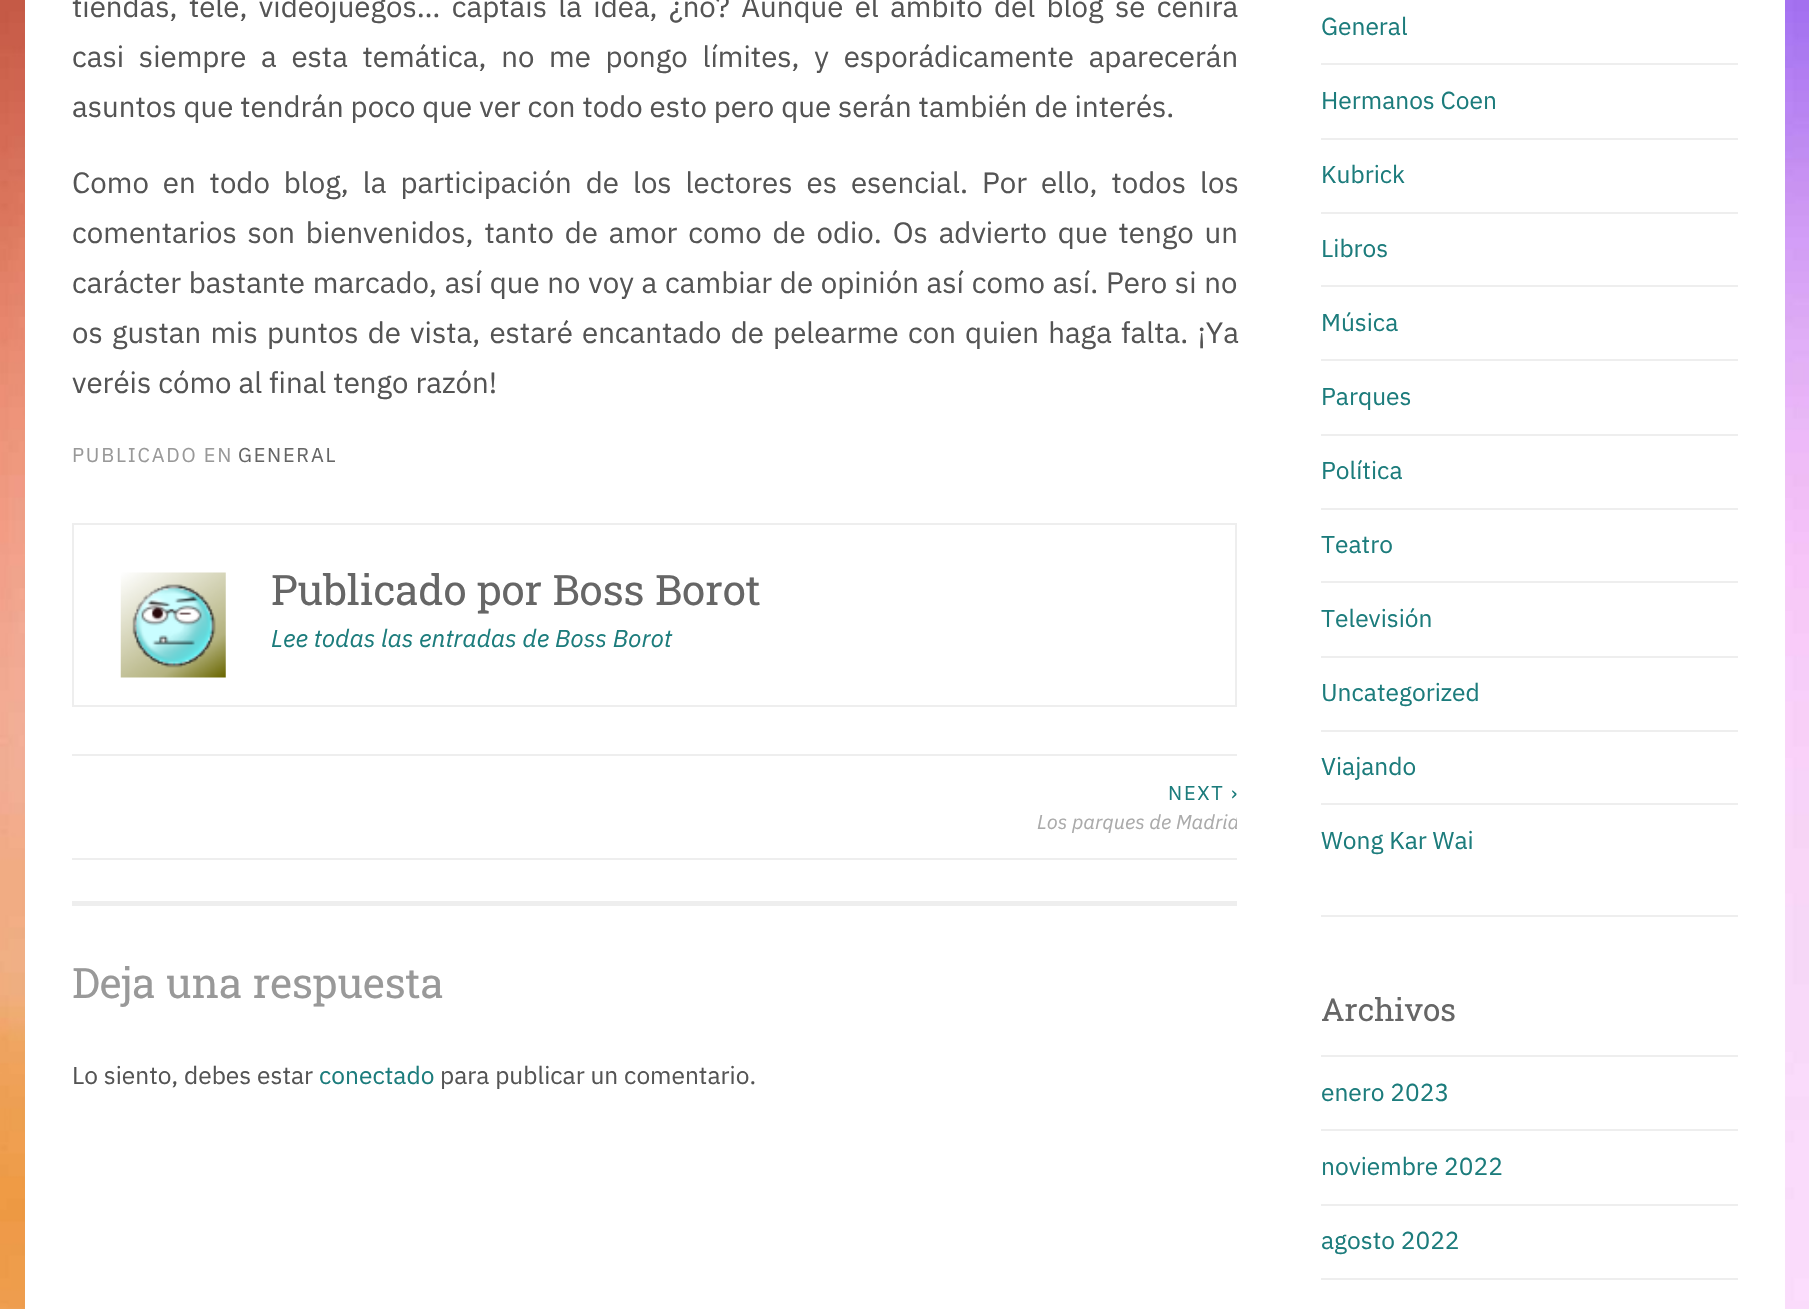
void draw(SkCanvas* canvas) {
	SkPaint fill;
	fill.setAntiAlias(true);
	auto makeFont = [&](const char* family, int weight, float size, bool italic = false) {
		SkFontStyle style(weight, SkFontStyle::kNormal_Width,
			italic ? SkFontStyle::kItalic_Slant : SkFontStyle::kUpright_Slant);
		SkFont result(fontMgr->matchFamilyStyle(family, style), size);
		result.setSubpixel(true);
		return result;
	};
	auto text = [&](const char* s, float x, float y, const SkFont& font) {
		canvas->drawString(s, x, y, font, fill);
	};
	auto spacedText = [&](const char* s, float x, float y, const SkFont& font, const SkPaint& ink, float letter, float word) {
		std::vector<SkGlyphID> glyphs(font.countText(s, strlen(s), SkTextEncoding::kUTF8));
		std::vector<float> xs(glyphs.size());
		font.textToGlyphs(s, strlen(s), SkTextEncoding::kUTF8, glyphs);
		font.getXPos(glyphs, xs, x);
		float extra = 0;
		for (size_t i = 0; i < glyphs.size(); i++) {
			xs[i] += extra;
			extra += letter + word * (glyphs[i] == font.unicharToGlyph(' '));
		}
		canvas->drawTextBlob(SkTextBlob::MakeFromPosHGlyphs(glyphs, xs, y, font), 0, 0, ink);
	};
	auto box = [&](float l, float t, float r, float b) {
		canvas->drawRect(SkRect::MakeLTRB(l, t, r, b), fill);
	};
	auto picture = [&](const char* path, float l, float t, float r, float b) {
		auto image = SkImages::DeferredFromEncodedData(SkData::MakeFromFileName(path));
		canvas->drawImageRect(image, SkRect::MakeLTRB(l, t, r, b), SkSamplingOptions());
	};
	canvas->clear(0xFFFFFFFF);
	picture("image0.png", 0, 0, 1809, 1309);
	fill.setColor(0xFFFFFFFF);
	box(25, 0, 1785, 1309);
	fill.setStyle(SkPaint::kStroke_Style);
	fill.setStrokeWidth(2);
	fill.setColor(0xFFEEEEEE);
	canvas->drawRect(SkRect::MakeLTRB(73, 524, 1236, 706), fill);
	picture("image1.png", 120, 572, 226, 678);
	fill.setStyle(SkPaint::kFill_Style);
	box(72, 754, 1237, 756);
	box(72, 858, 1237, 860);
	box(72, 901, 1237, 906);
	box(1321, 915, 1738, 917);
	box(1321, 63, 1738, 65);
	box(1321, 138, 1738, 140);
	box(1321, 212, 1738, 214);
	box(1321, 285, 1738, 287);
	box(1321, 359, 1738, 361);
	box(1321, 434, 1738, 436);
	box(1321, 508, 1738, 510);
	box(1321, 581, 1738, 583);
	box(1321, 656, 1738, 658);
	box(1321, 730, 1738, 732);
	box(1321, 803, 1738, 805);
	box(1321, 1055, 1738, 1057);
	box(1321, 1129, 1738, 1131);
	box(1321, 1204, 1738, 1206);
	box(1321, 1278, 1738, 1280);
	auto font1 = makeFont("IBM Plex Sans", 400, 29.4f);
	fill.setColor(0xFF545454);
	spacedText("tiendas, tele, videojuegos… captáis la idea, ¿no? Aunque el ámbito del blog se ceñirá", 72, 17, font1, fill, 0, 4.4f);
	spacedText("casi siempre a esta temática, no me pongo límites, y esporádicamente aparecerán", 72, 67, font1, fill, 0, 7.75f);
	text("asuntos que tendrán poco que ver con todo esto pero que serán también de interés.", 72, 117, font1);
	spacedText("Como en todo blog, la participación de los lectores es esencial. Por ello, todos los", 72, 193, font1, fill, 0, 7);
	spacedText("comentarios son bienvenidos, tanto de amor como de odio. Os advierto que tengo un", 72, 243, font1, fill, 0, 3.9f);
	spacedText("carácter bastante marcado, así que no voy a cambiar de opinión así como así. Pero si no", 72, 293, font1, fill, 0, 0.8f);
	spacedText("os gustan mis puntos de vista, estaré encantado de pelearme con quien haga falta. ¡Ya", 72, 343, font1, fill, 0, 2.25f);
	text("veréis cómo al final tengo razón!", 72, 393, font1);
	auto font2 = makeFont("IBM Plex Sans", 400, 20);
	fill.setColor(0xFF999999);
	spacedText("PUBLICADO EN", 72, 462, font2, fill, 1.75f, 0);
	fill.setColor(0xFF666666);
	spacedText("GENERAL", 238, 462, font2, fill, 1.75f, 0);
	auto font3 = makeFont("Roboto Slab", 400, 42);
	text("Publicado por Boss Borot", 271, 605, font3);
	auto font4 = makeFont("IBM Plex Sans", 400, 24.5f, true);
	fill.setColor(0xFF1C7C7C);
	text("Lee todas las entradas de Boss Borot", 271, 647, font4);
	spacedText("NEXT ›", 1168, 800, font2, fill, 1.75f, 0);
	canvas->save();
	canvas->clipRect(SkRect::MakeLTRB(72, 756, 1237, 858));
	auto font5 = makeFont("IBM Plex Sans", 400, 20, true);
	fill.setColor(0xFFAAAAAA);
	text("Los parques de Madrid", 1037, 829, font5);
	canvas->restore();
	fill.setColor(0xFF999999);
	text("Deja una respuesta", 72, 998, font3);
	auto font6 = makeFont("IBM Plex Sans", 400, 24.5f);
	fill.setColor(0xFF545454);
	text("Lo siento, debes estar", 72, 1084, font6);
	fill.setColor(0xFF1C7C7C);
	text("conectado", 319, 1084, font6);
	fill.setColor(0xFF545454);
	text("para publicar un comentario.", 440, 1084, font6);
	fill.setColor(0xFF1C7C7C);
	text("General", 1321, 35, font6);
	text("Hermanos Coen", 1321, 109, font6);
	text("Kubrick", 1321, 183, font6);
	text("Libros", 1321, 257, font6);
	text("Música", 1321, 331, font6);
	text("Parques", 1321, 405, font6);
	text("Política", 1321, 479, font6);
	text("Teatro", 1321, 553, font6);
	text("Televisión", 1321, 627, font6);
	text("Uncategorized", 1321, 701, font6);
	text("Viajando", 1321, 775, font6);
	text("Wong Kar Wai", 1321, 849, font6);
	auto font7 = makeFont("Roboto Slab", 400, 31.5f);
	fill.setColor(0xFF666666);
	text("Archivos", 1321, 1021, font7);
	fill.setColor(0xFF1C7C7C);
	text("enero 2023", 1321, 1101, font6);
	text("noviembre 2022", 1321, 1175, font6);
	text("agosto 2022", 1321, 1249, font6);
}
